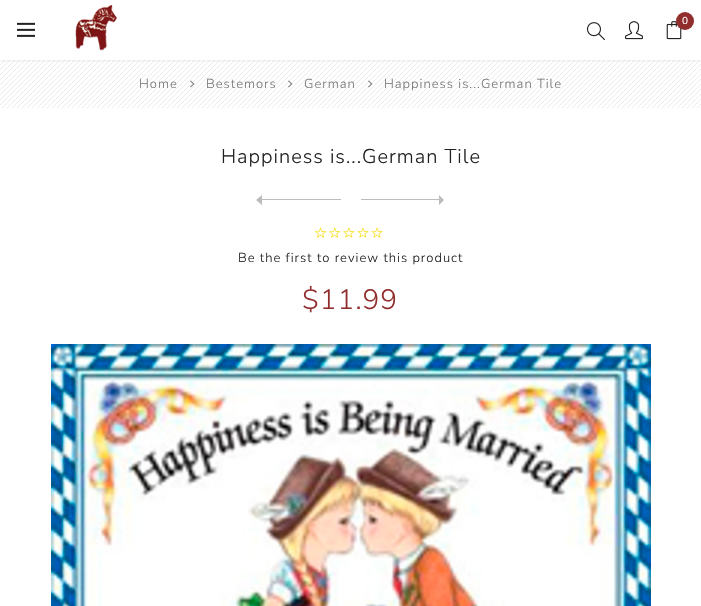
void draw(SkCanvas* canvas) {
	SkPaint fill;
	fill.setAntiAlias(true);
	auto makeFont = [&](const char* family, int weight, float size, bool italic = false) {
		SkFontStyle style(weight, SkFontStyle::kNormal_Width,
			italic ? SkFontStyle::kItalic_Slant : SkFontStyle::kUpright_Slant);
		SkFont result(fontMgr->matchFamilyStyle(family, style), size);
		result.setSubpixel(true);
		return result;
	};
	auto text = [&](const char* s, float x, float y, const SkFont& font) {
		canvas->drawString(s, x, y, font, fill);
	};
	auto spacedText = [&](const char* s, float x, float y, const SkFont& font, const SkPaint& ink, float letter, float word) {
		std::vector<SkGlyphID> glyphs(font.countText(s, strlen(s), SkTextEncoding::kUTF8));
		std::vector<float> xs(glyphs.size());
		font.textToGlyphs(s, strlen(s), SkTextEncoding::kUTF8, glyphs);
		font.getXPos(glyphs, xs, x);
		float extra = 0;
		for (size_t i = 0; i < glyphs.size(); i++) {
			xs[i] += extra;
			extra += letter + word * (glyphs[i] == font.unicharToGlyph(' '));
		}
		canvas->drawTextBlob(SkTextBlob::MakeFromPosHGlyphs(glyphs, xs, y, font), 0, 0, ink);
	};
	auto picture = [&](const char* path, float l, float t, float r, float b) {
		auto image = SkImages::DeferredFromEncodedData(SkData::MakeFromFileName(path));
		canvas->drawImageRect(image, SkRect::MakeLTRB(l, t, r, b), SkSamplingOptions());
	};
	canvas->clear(0xFFFFFFFF);
	picture("image5.png", 0, 60, 701, 108);
	canvas->save();
	canvas->clipRect(SkRect::MakeLTRB(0, 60, 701, 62));
	fill.setColor(0x1A000000);
	fill.setMaskFilter(SkMaskFilter::MakeBlur(kNormal_SkBlurStyle, 2.5f));
	canvas->drawRect(SkRect::MakeLTRB(0, 0, 701, 60), fill);
	fill.setMaskFilter(nullptr);
	canvas->restore();
	picture("image0.png", 17, 22, 35, 37);
	picture("image1.png", 75, 5, 117, 51);
	picture("image2.png", 586, 22, 605, 41);
	picture("image3.png", 625, 21, 643, 40);
	picture("image4.png", 666, 21, 682, 40);
	fill.setColor(0xFF912D2D);
	canvas->drawCircle(685, 21, 9, fill);
	picture("image6.png", 190, 80, 195, 88);
	picture("image7.png", 288, 80, 293, 88);
	picture("image7.png", 368, 80, 373, 88);
	canvas->save();
	canvas->clipRect(SkRect::MakeLTRB(256, 190, 341, 210));
	fill.setColor(0xFFBCBCBC);
	canvas->drawPath(SkPathBuilder().moveTo(256, 200).lineTo(262, 195).lineTo(262, 199).lineTo(349, 199).lineTo(349, 200).lineTo(262, 200).lineTo(262, 205).close().detach(), fill);
	canvas->restore();
	canvas->save();
	canvas->clipRect(SkRect::MakeLTRB(361, 190, 446, 210));
	canvas->drawPath(SkPathBuilder().moveTo(444, 200).lineTo(439, 205).lineTo(439, 200).lineTo(351, 200).lineTo(351, 199).lineTo(439, 199).lineTo(439, 195).close().detach(), fill);
	canvas->restore();
	picture("image8.png", 315, 227, 383, 238);
	picture("image9.png", 51, 344, 651, 606);
	auto font1 = makeFont("Nunito Sans", 400, 10);
	fill.setColor(0xFFFFFFFF);
	text("0", 682, 24, font1);
	auto font2 = makeFont("Nunito Sans", 300, 13);
	fill.setColor(0xFF777777);
	spacedText("Home", 139, 88, font2, fill, 1, 0);
	spacedText("Bestemors", 206, 88, font2, fill, 1, 0);
	spacedText("German", 304, 88, font2, fill, 1, 0);
	spacedText("Happiness is...German Tile", 384, 88, font2, fill, 1, 0);
	auto font3 = makeFont("Nunito Sans", 300, 20);
	fill.setColor(0xFF222222);
	spacedText("Happiness is...German Tile", 221, 163, font3, fill, 1, 0);
	spacedText("Be the first to review this product", 238, 262, font2, fill, 1, 0);
	auto font4 = makeFont("Nunito Sans", 300, 28);
	fill.setColor(0xFF912D2D);
	spacedText("$11.99", 302, 309, font4, fill, 1, 0);
}
